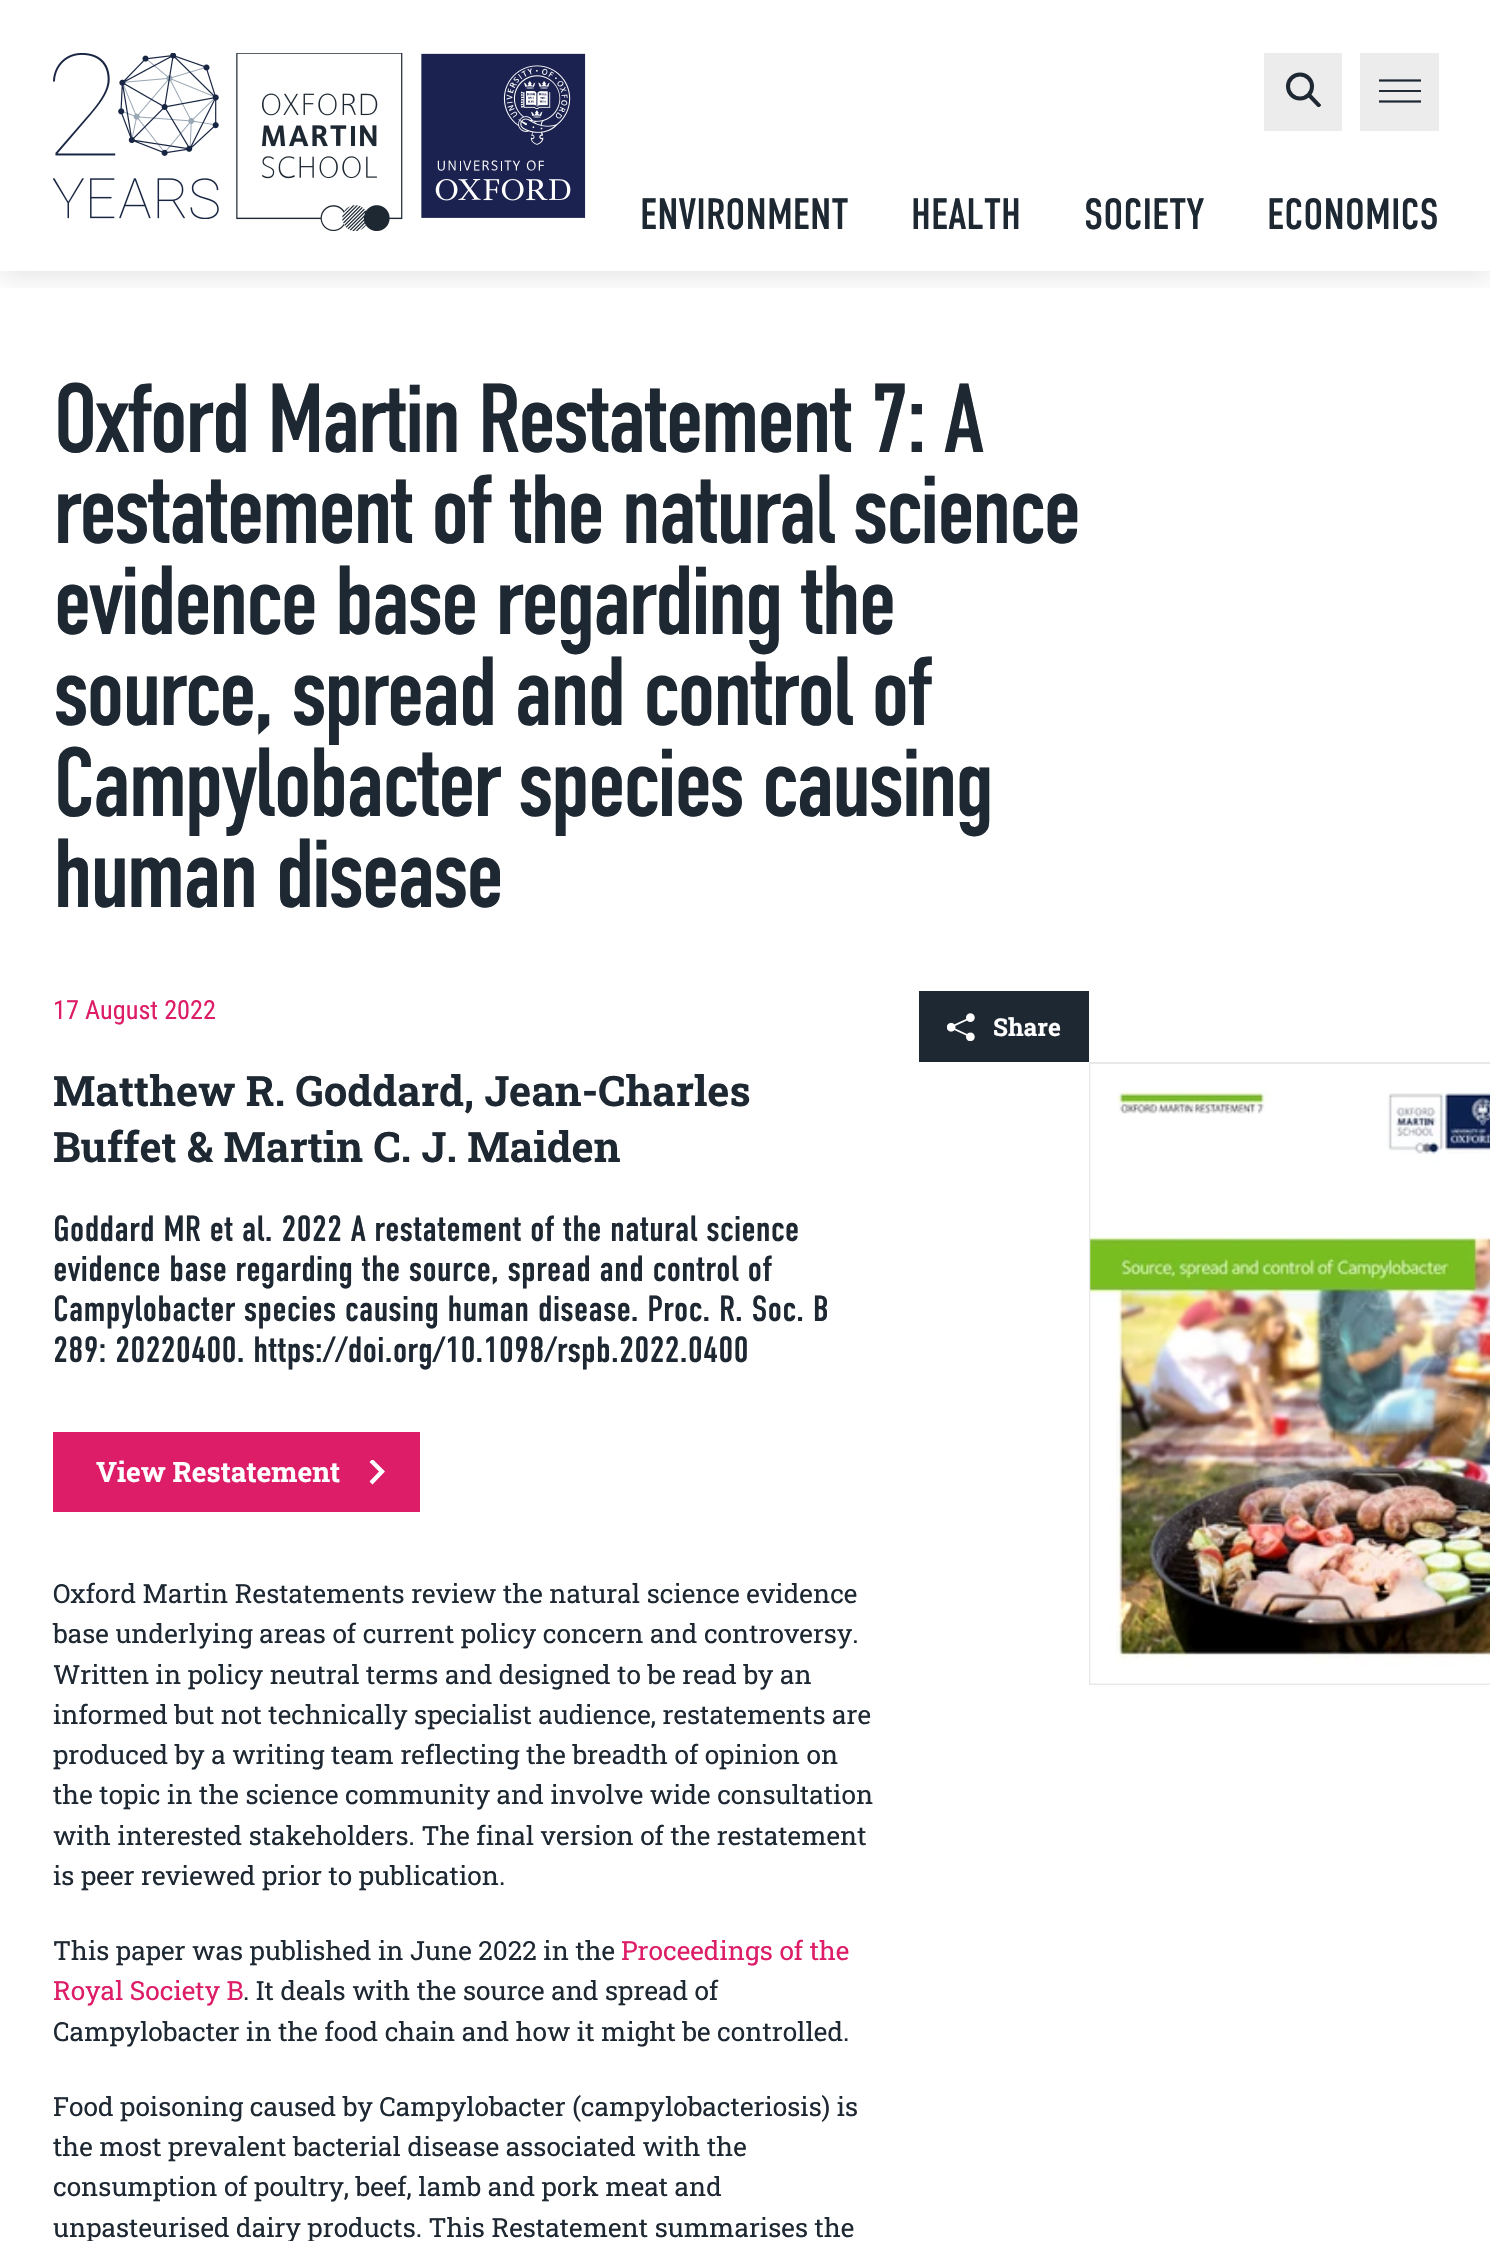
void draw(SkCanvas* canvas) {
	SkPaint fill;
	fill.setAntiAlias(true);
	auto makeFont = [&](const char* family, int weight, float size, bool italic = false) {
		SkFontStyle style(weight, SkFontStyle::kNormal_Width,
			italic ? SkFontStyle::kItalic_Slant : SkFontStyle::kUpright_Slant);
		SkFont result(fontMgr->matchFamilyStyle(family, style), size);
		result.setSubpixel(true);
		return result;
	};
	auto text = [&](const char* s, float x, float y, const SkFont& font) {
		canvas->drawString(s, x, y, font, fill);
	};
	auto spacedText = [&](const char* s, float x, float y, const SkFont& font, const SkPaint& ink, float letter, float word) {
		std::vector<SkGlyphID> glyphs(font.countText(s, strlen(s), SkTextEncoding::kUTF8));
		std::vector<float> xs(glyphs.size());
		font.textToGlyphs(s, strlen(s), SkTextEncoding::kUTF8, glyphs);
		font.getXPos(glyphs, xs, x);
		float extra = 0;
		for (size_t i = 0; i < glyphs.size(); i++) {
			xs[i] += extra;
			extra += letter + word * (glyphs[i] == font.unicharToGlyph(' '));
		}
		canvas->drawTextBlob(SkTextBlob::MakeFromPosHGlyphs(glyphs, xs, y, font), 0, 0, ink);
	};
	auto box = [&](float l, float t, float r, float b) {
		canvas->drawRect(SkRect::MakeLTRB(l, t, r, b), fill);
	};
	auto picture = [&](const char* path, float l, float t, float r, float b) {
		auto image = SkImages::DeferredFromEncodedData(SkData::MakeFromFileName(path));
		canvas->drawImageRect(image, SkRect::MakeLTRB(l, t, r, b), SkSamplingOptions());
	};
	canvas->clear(0xFFFFFFFF);
	canvas->save();
	canvas->clipRect(SkRect::MakeLTRB(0, 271, 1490, 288));
	fill.setColor(0x1A000000);
	fill.setMaskFilter(SkMaskFilter::MakeBlur(kNormal_SkBlurStyle, 13));
	canvas->drawRect(SkRect::MakeLTRB(0, 5, 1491, 277), fill);
	fill.setMaskFilter(nullptr);
	canvas->restore();
	picture("image0.png", 53, 53, 219, 219);
	picture("image1.png", 236, 53, 403, 231);
	picture("image2.png", 421, 53, 586, 218);
	fill.setColor(0xFFECECEC);
	box(1264, 53, 1342, 131);
	fill.setStyle(SkPaint::kStroke_Style);
	fill.setStrokeWidth(4);
	fill.setColor(0xFF1E2832);
	canvas->drawCircle(1300, 86.5f, 12, fill);
	canvas->save();
	canvas->clipRect(SkRect::MakeLTRB(1286, 72, 1321, 107));
	canvas->drawPath(SkPathBuilder().moveTo(1309, 95).lineTo(1320, 106.5f).detach(), fill);
	canvas->restore();
	fill.setStyle(SkPaint::kFill_Style);
	fill.setColor(0xFFECECEC);
	box(1360, 53, 1439, 131);
	picture("image3.png", 1379, 79, 1421, 103);
	fill.setColor(0xFF1E2832);
	box(919, 991, 1089, 1062);
	picture("image4.png", 947, 1013, 975, 1041);
	fill.setColor(0xFFDD1D67);
	box(53, 1432, 420, 1512);
	canvas->save();
	canvas->clipRect(SkRect::MakeLTRB(369, 1460, 385, 1486));
	fill.setColor(0xFFFFFFFF);
	canvas->drawPath(SkPathBuilder().moveTo(372.5f, 1484.5f).lineTo(369.5f, 1481.5f).lineTo(379, 1471.5f).lineTo(369.5f, 1462).lineTo(372.5f, 1459).lineTo(385, 1471.5f).close().detach(), fill);
	canvas->restore();
	fill.setStyle(SkPaint::kStroke_Style);
	fill.setStrokeWidth(2);
	fill.setColor(0xFFE8E8E8);
	canvas->drawRect(SkRect::MakeLTRB(1090, 1063, 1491, 1684), fill);
	picture("image5.png", 1090, 1064, 1490, 1684);
	auto font1 = makeFont("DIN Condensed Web", 400, 43.75f);
	fill.setStyle(SkPaint::kFill_Style);
	fill.setColor(0xFF1E2832);
	text("ENVIRONMENT", 640, 229, font1);
	text("HEALTH", 911, 229, font1);
	text("SOCIETY", 1084, 229, font1);
	text("ECONOMICS", 1267, 229, font1);
	auto font2 = makeFont("DIN Condensed Web", 400, 98);
	spacedText("Oxford Martin Restatement 7: A", 53, 452, font2, fill, -3.5f, 0);
	spacedText("restatement of the natural science", 53, 543, font2, fill, -3.5f, 0);
	spacedText("evidence base regarding the", 53, 634, font2, fill, -3.5f, 0);
	spacedText("source, spread and control of", 53, 725, font2, fill, -3.5f, 0);
	spacedText("Campylobacter species causing", 53, 816, font2, fill, -3.5f, 0);
	spacedText("human disease", 53, 907, font2, fill, -3.5f, 0);
	auto font3 = makeFont("Roboto Condensed", 400, 26.25f);
	fill.setColor(0xFFDD1D67);
	text("17 August 2022", 53, 1019, font3);
	auto font4 = makeFont("Roboto Slab", 700, 24.5f);
	fill.setColor(0xFFFFFFFF);
	text("Share", 993, 1036, font4);
	auto font5 = makeFont("Roboto Slab", 700, 42);
	fill.setColor(0xFF1E2832);
	text("Matthew R. Goddard, Jean-Charles", 53, 1106, font5);
	text("Buffet & Martin C. J. Maiden", 53, 1162, font5);
	auto font6 = makeFont("DIN Condensed Web", 400, 36.4f);
	text("Goddard MR et al. 2022 A restatement of the natural science", 53, 1241, font6);
	text("evidence base regarding the source, spread and control of", 53, 1281, font6);
	text("Campylobacter species causing human disease. Proc. R. Soc. B", 53, 1321, font6);
	text("289: 20220400. https://doi.org/10.1098/rspb.2022.0400", 53, 1362, font6);
	auto font7 = makeFont("Roboto Slab", 700, 28);
	fill.setColor(0xFFFFFFFF);
	text("View Restatement", 96, 1482, font7);
	auto font8 = makeFont("Roboto Slab", 400, 26.25f);
	fill.setColor(0xFF1E2832);
	text("Oxford Martin Restatements review the natural science evidence", 53, 1603, font8);
	text("base underlying areas of current policy concern and controversy.", 53, 1643, font8);
	text("Written in policy neutral terms and designed to be read by an", 53, 1684, font8);
	text("informed but not technically specialist audience, restatements are", 53, 1724, font8);
	text("produced by a writing team reflecting the breadth of opinion on", 53, 1764, font8);
	text("the topic in the science community and involve wide consultation", 53, 1804, font8);
	text("with interested stakeholders. The final version of the restatement", 53, 1845, font8);
	text("is peer reviewed prior to publication.", 53, 1885, font8);
	text("This paper was published in June 2022 in the", 53, 1960, font8);
	fill.setColor(0xFFDD1D67);
	text("Proceedings of the", 621, 1960, font8);
	text("Royal Society B", 53, 2000, font8);
	fill.setColor(0xFF1E2832);
	text(". It deals with the source and spread of", 243, 2000, font8);
	text("Campylobacter in the food chain and how it might be controlled.", 53, 2041, font8);
	text("Food poisoning caused by Campylobacter (campylobacteriosis) is", 53, 2116, font8);
	text("the most prevalent bacterial disease associated with the", 53, 2156, font8);
	text("consumption of poultry, beef, lamb and pork meat and", 53, 2196, font8);
	text("unpasteurised dairy products. This Restatement summarises the", 53, 2237, font8);
}
